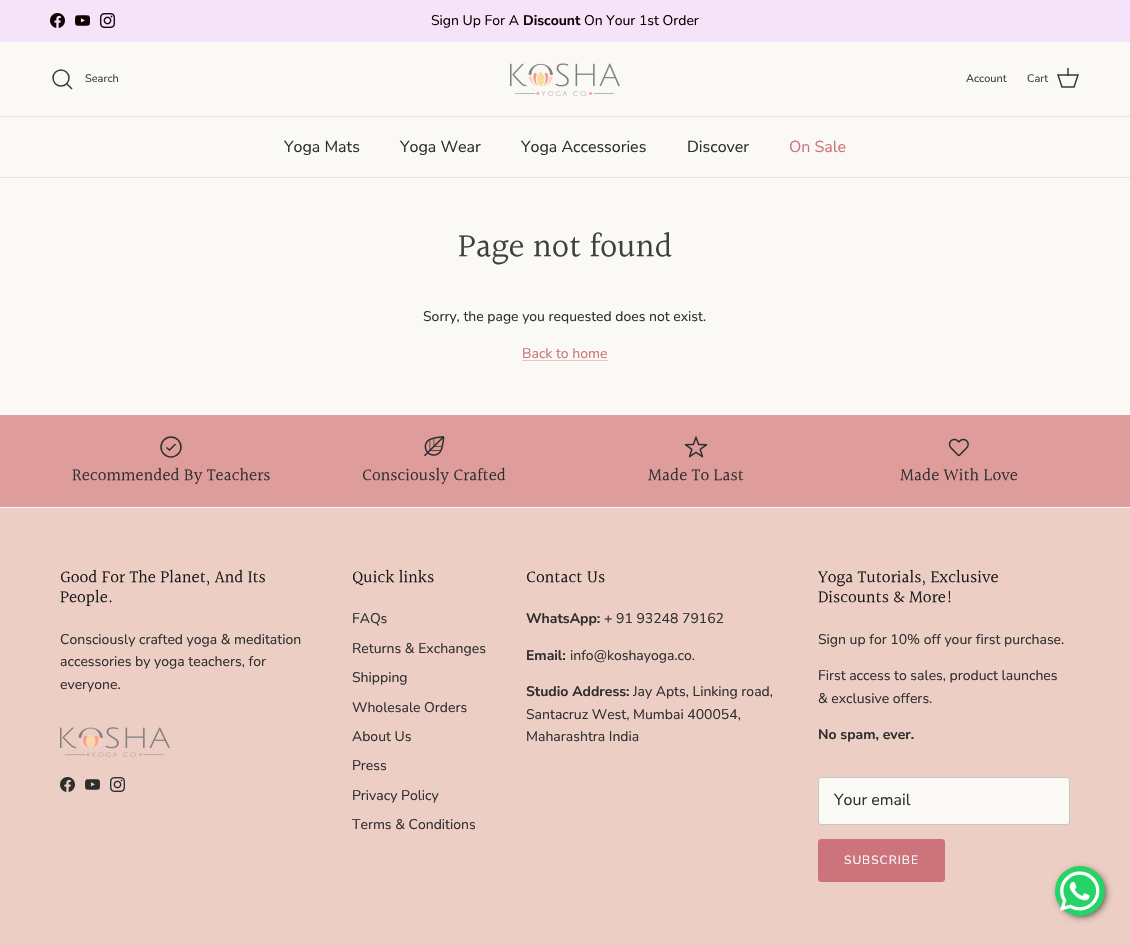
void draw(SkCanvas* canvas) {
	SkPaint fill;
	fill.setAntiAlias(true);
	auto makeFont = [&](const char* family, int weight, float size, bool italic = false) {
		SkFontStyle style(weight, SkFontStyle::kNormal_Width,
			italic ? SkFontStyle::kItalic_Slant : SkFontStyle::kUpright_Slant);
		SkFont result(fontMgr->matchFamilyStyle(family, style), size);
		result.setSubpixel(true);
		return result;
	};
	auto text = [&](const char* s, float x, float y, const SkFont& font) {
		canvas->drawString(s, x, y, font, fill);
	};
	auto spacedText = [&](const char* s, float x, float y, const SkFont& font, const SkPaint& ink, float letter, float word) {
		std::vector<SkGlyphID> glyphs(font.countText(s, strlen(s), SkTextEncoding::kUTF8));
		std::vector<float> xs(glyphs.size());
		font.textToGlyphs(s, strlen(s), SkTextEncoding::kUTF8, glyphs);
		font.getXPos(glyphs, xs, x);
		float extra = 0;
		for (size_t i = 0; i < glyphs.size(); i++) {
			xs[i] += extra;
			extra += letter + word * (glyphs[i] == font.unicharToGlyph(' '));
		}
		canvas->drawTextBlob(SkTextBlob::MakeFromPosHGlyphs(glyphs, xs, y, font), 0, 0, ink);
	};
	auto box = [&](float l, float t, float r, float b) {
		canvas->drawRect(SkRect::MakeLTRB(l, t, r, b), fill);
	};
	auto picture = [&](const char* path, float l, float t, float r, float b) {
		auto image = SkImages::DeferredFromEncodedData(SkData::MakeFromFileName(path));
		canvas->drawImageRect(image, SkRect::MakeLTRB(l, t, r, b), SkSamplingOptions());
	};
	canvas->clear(0xFFFAF9F6);
	fill.setColor(0xFFF5E3FA);
	box(0, 0, 1130, 42);
	picture("image0.png", 50, 13, 65, 28);
	picture("image1.png", 75, 15, 90, 26);
	picture("image2.png", 100, 13, 115, 28);
	fill.setColor(0xFFEDDED8);
	box(0, 116, 1130, 117);
	fill.setStyle(SkPaint::kStroke_Style);
	fill.setStrokeWidth(1.5f);
	fill.setColor(0xFF393939);
	canvas->drawCircle(61, 78, 8, fill);
	fill.setStrokeCap(SkPaint::kSquare_Cap);
	canvas->drawPath(SkPathBuilder().moveTo(67, 84).lineTo(71.5f, 88.5f).detach(), fill);
	picture("image3.png", 510, 63, 620, 96);
	fill.setStrokeCap(SkPaint::kButt_Cap);
	canvas->drawPath(SkPathBuilder().moveTo(1058, 75).lineTo(1078, 75).lineTo(1074, 87).lineTo(1062, 87).close().detach(), fill);
	fill.setStyle(SkPaint::kFill_Style);
	fill.setColor(0xBF393939);
	box(1067, 68, 1069, 76);
	fill.setColor(0xFFEDDED8);
	box(0, 177, 1130, 178);
	fill.setColor(0xFFE8C3C5);
	box(522, 360, 608, 361);
	fill.setColor(0xFFDE9D9A);
	box(0, 415, 1130, 507);
	fill.setStyle(SkPaint::kStroke_Style);
	fill.setColor(0xFF2D2D2D);
	canvas->drawCircle(171, 447, 10, fill);
	canvas->drawPath(SkPathBuilder().moveTo(175.5f, 444).lineTo(169.5f, 450).lineTo(166.5f, 447.5f).detach(), fill);
	picture("image4.png", 424, 436, 445, 457);
	picture("image5.png", 684, 436, 708, 458);
	picture("image6.png", 948, 438, 969, 457);
	fill.setStyle(SkPaint::kFill_Style);
	fill.setColor(0xFFECCEC4);
	box(0, 508, 1130, 946);
	picture("image7.png", 60, 727, 170, 757);
	picture("image8.png", 60, 777, 75, 792);
	picture("image9.png", 85, 779, 100, 790);
	picture("image10.png", 110, 777, 125, 792);
	fill.setColor(0xFFFAF9F6);
	canvas->drawRoundRect(SkRect::MakeLTRB(818.5f, 777.5f, 1069.5f, 824.5f), 2.5f, 2.5f, fill);
	fill.setStyle(SkPaint::kStroke_Style);
	fill.setStrokeWidth(1);
	fill.setColor(0xFFC7C7C4);
	canvas->drawRoundRect(SkRect::MakeLTRB(818.5f, 777.5f, 1069.5f, 824.5f), 2.5f, 2.5f, fill);
	fill.setStyle(SkPaint::kFill_Style);
	fill.setColor(0xFFCD737C);
	canvas->drawRoundRect(SkRect::MakeLTRB(818.5f, 839.5f, 944.5f, 881.5f), 2.5f, 2.5f, fill);
	fill.setStyle(SkPaint::kStroke_Style);
	canvas->drawRoundRect(SkRect::MakeLTRB(818.5f, 839.5f, 944.5f, 881.5f), 2.5f, 2.5f, fill);
	fill.setStyle(SkPaint::kFill_Style);
	fill.setColor(0xFF000000);
	fill.setMaskFilter(SkMaskFilter::MakeBlur(kNormal_SkBlurStyle, 4));
	canvas->drawRoundRect(SkRect::MakeLTRB(1060, 871, 1104, 915), 22, 22, fill);
	fill.setMaskFilter(nullptr);
	fill.setColor(0xFF25D366);
	canvas->drawCircle(1080, 891, 25, fill);
	picture("image11.png", 1060, 871, 1100, 911);
	auto font1 = makeFont("Nunito Sans", 400, 14);
	fill.setColor(0xFF120101);
	text("Sign Up For A", 431, 25, font1);
	auto font2 = makeFont("Nunito Sans", 700, 14);
	text("Discount", 523, 25, font2);
	text("On Your 1st Order", 584, 25, font1);
	auto font3 = makeFont("Nunito Sans", 400, 11);
	fill.setColor(0xFF393939);
	text("Search", 85, 82, font3);
	text("Account", 966, 82, font3);
	text("Cart", 1027, 82, font3);
	auto font4 = makeFont("Nunito Sans", 400, 16);
	fill.setColor(0xFF2F2F2F);
	text("Yoga Mats", 284, 152, font4);
	text("Yoga Wear", 400, 152, font4);
	text("Yoga Accessories", 521, 152, font4);
	text("Discover", 687, 152, font4);
	fill.setColor(0xFFCD737C);
	text("On Sale", 789, 152, font4);
	auto font5 = makeFont("Halant", 400, 34);
	fill.setColor(0xFF3F3F3F);
	text("Page not found", 458, 258, font5);
	fill.setColor(0xFF2F2F2F);
	text("Sorry, the page you requested does not exist.", 423, 321, font1);
	fill.setColor(0xFFCD737C);
	text("Back to home", 522, 358, font1);
	auto font6 = makeFont("Halant", 400, 17.25f);
	fill.setColor(0xFF2F2F2F);
	text("Recommended By Teachers", 72, 481, font6);
	text("Consciously Crafted", 362, 481, font6);
	text("Made To Last", 648, 481, font6);
	text("Made With Love", 900, 481, font6);
	fill.setColor(0xFF171717);
	text("Good For The Planet, And Its", 60, 583, font6);
	text("People.", 60, 603, font6);
	fill.setColor(0xFF2F2F2F);
	text("Consciously crafted yoga & meditation", 60, 644, font1);
	text("accessories by yoga teachers, for", 60, 666, font1);
	text("everyone.", 60, 689, font1);
	fill.setColor(0xFF171717);
	text("Quick links", 352, 583, font6);
	fill.setColor(0xFF2F2F2F);
	text("FAQs", 352, 623, font1);
	text("Returns & Exchanges", 352, 653, font1);
	text("Shipping", 352, 682, font1);
	text("Wholesale Orders", 352, 712, font1);
	text("About Us", 352, 741, font1);
	text("Press", 352, 770, font1);
	text("Privacy Policy", 352, 800, font1);
	text("Terms & Conditions", 352, 829, font1);
	fill.setColor(0xFF171717);
	text("Contact Us", 526, 583, font6);
	fill.setColor(0xFF2F2F2F);
	text("WhatsApp:", 526, 623, font2);
	text("+ 91 93248 79162", 604, 623, font1);
	text("Email:", 526, 660, font2);
	text("info@koshayoga.co.", 570, 660, font1);
	text("Studio Address:", 526, 696, font2);
	text("Jay Apts, Linking road,", 633, 696, font1);
	text("Santacruz West, Mumbai 400054,", 526, 719, font1);
	text("Maharashtra India", 526, 741, font1);
	fill.setColor(0xFF171717);
	text("Yoga Tutorials, Exclusive", 818, 583, font6);
	text("Discounts & More!", 818, 603, font6);
	fill.setColor(0xFF2F2F2F);
	text("Sign up for 10% off your first purchase.", 818, 644, font1);
	text("First access to sales, product launches", 818, 680, font1);
	text("& exclusive offers.", 818, 703, font1);
	text("No spam, ever.", 818, 739, font2);
	text("Your email", 834, 805, font4);
	auto font7 = makeFont("Nunito Sans", 400, 12);
	fill.setColor(0xFFFAFAFA);
	spacedText("SUBSCRIBE", 844, 864, font7, fill, 1, 0);
}
